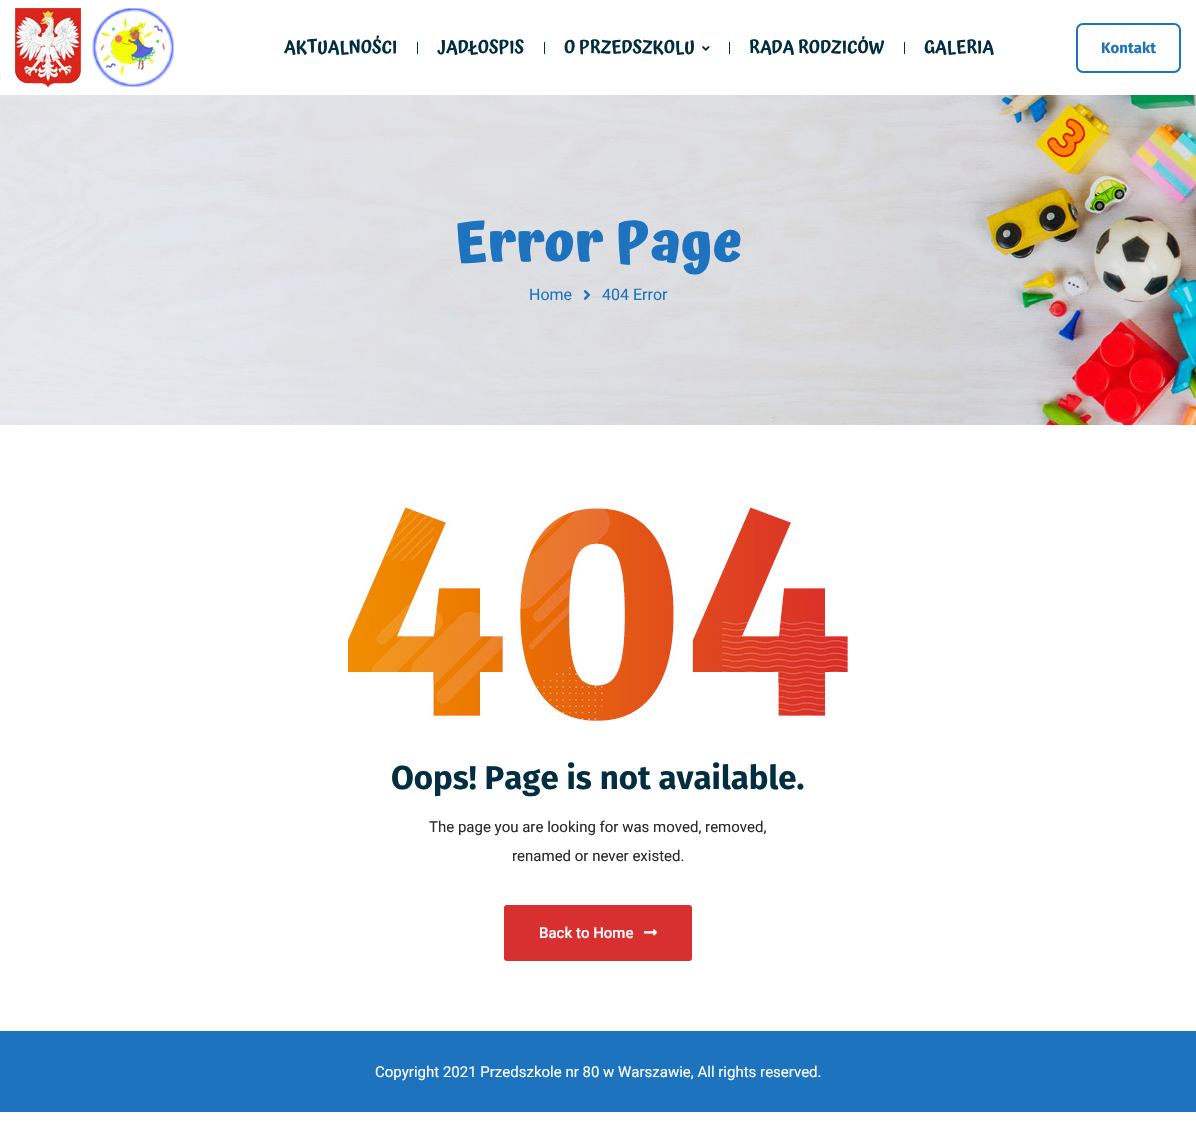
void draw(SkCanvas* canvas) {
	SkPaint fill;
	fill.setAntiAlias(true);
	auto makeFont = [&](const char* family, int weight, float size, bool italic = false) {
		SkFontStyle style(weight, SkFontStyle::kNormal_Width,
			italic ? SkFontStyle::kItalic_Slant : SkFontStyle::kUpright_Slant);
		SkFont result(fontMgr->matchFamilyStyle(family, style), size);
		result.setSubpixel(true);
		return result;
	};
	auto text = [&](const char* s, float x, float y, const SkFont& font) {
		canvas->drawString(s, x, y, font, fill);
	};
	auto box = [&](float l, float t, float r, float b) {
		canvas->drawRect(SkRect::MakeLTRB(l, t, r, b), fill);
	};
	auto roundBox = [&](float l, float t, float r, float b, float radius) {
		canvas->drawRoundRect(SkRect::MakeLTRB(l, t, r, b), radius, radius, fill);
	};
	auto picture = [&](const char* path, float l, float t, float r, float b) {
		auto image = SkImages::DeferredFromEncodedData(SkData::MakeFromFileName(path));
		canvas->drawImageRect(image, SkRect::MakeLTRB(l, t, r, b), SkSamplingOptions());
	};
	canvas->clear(0xFFFFFFFF);
	picture("image0.png", 15, 8, 175, 88);
	fill.setColor(0xFF032E42);
	box(417, 42, 418, 54);
	box(544, 42, 545, 54);
	picture("image1.png", 702, 46, 710, 51);
	box(729, 42, 730, 54);
	box(904, 42, 905, 54);
	fill.setStyle(SkPaint::kStroke_Style);
	fill.setStrokeWidth(2);
	fill.setColor(0xFF1E73BE);
	canvas->drawRoundRect(SkRect::MakeLTRB(1077, 24, 1180, 72), 6, 6, fill);
	picture("image2.png", 0, 95, 1196, 425);
	picture("image3.png", 583, 290, 591, 300);
	picture("image4.png", 348, 505, 848, 721);
	fill.setStyle(SkPaint::kFill_Style);
	fill.setColor(0xFFD83030);
	roundBox(504, 905, 692, 961, 3);
	picture("image5.png", 644, 929, 658, 936);
	fill.setColor(0xFF1E73BE);
	box(0, 1031, 1196, 1112);
	auto font1 = makeFont("Atma", 600, 18);
	fill.setColor(0xFF032E42);
	text("AKTUALNOŚCI", 284, 53, font1);
	text("JADŁOSPIS", 437, 53, font1);
	text("O PRZEDSZKOLU", 564, 53, font1);
	text("RADA RODZICÓW", 749, 53, font1);
	text("GALERIA", 924, 53, font1);
	auto font2 = makeFont("Fira Sans", 700, 15);
	fill.setColor(0xFF1E73BE);
	text("Kontakt", 1101, 53, font2);
	auto font3 = makeFont("Atma", 700, 55);
	text("Error Page", 454, 261, font3);
	auto font4 = makeFont("Roboto", 400, 16);
	text("Home", 529, 300, font4);
	text("404 Error", 602, 300, font4);
	auto font5 = makeFont("Fira Sans", 700, 33);
	fill.setColor(0xFF032E42);
	text("Oops! Page is not available.", 391, 789, font5);
	auto font6 = makeFont("Roboto", 400, 15);
	fill.setColor(0xFF2B2B2B);
	text("The page you are looking for was moved, removed,", 429, 832, font6);
	text("renamed or never existed.", 512, 861, font6);
	auto font7 = makeFont("Roboto", 500, 15);
	fill.setColor(0xFFFFFFFF);
	text("Back to Home", 539, 938, font7);
	text("Copyright 2021 Przedszkole nr 80 w Warszawie, All rights reserved.", 375, 1077, font6);
}
